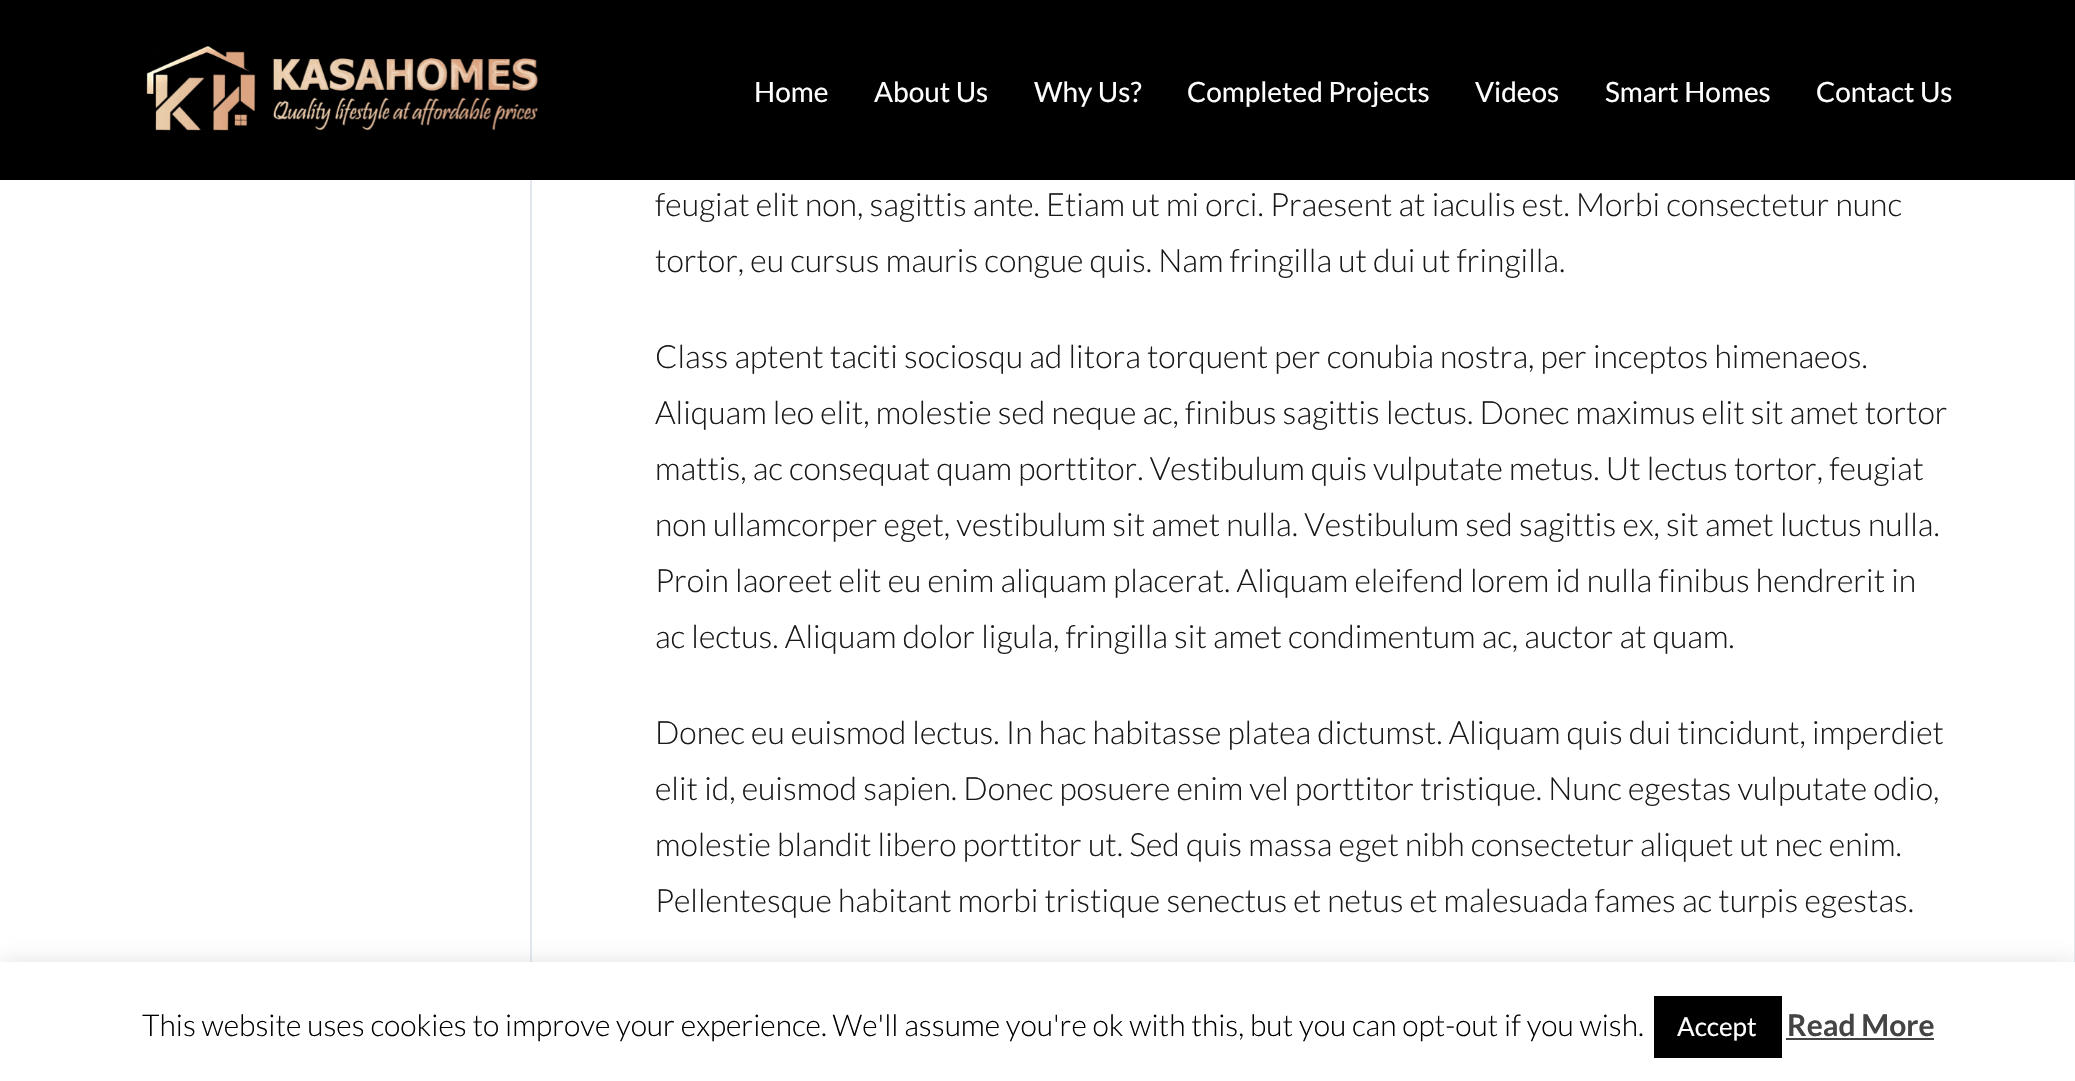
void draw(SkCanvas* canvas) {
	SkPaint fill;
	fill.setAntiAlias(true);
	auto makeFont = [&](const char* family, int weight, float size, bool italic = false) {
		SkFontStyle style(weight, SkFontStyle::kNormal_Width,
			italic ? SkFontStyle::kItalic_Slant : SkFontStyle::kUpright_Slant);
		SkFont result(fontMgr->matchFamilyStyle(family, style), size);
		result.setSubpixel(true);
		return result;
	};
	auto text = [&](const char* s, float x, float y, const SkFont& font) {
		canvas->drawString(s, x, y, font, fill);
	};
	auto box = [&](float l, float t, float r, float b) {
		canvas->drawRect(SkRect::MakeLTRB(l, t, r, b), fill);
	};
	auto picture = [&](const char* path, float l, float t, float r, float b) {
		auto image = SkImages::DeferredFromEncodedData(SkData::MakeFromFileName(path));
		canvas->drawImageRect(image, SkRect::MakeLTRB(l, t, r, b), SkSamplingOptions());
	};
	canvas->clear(0xFFFFFFFF);
	fill.setStyle(SkPaint::kStroke_Style);
	fill.setStrokeWidth(2);
	fill.setColor(0xFFE2E8F0);
	canvas->drawRect(SkRect::MakeLTRB(531, -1, 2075, 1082), fill);
	fill.setStyle(SkPaint::kFill_Style);
	fill.setColor(0xFF000000);
	box(0, 0, 2075, 180);
	picture("image0.png", 146, 46, 538, 131);
	fill.setColor(0x4DACABAB);
	fill.setMaskFilter(SkMaskFilter::MakeBlur(kNormal_SkBlurStyle, 10));
	canvas->drawRect(SkRect::MakeLTRB(0, 960, 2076, 1080), fill);
	fill.setMaskFilter(nullptr);
	fill.setColor(0xFFFFFFFF);
	box(0, 962, 2075, 1081);
	fill.setColor(0xFF000000);
	box(1654, 996, 1782, 1058);
	fill.setColor(0xFF444444);
	box(1786, 1038, 1934, 1040);
	auto font1 = makeFont("Lato", 400, 28);
	fill.setColor(0xFFFFFFFF);
	text("Home", 754, 102, font1);
	text("About Us", 874, 102, font1);
	text("Why Us?", 1034, 102, font1);
	text("Completed Projects", 1187, 102, font1);
	text("Videos", 1475, 102, font1);
	text("Smart Homes", 1605, 102, font1);
	text("Contact Us", 1816, 102, font1);
	auto font2 = makeFont("Lato", 300, 32);
	fill.setColor(0xFF191919);
	text("feugiat elit non, sagittis ante. Etiam ut mi orci. Praesent at iaculis est. Morbi consectetur nunc", 655, 216, font2);
	text("tortor, eu cursus mauris congue quis. Nam fringilla ut dui ut fringilla.", 655, 272, font2);
	text("Class aptent taciti sociosqu ad litora torquent per conubia nostra, per inceptos himenaeos.", 655, 368, font2);
	text("Aliquam leo elit, molestie sed neque ac, finibus sagittis lectus. Donec maximus elit sit amet tortor", 655, 424, font2);
	text("mattis, ac consequat quam porttitor. Vestibulum quis vulputate metus. Ut lectus tortor, feugiat", 655, 480, font2);
	text("non ullamcorper eget, vestibulum sit amet nulla. Vestibulum sed sagittis ex, sit amet luctus nulla.", 655, 536, font2);
	text("Proin laoreet elit eu enim aliquam placerat. Aliquam eleifend lorem id nulla finibus hendrerit in", 655, 592, font2);
	text("ac lectus. Aliquam dolor ligula, fringilla sit amet condimentum ac, auctor at quam.", 655, 648, font2);
	text("Donec eu euismod lectus. In hac habitasse platea dictumst. Aliquam quis dui tincidunt, imperdiet", 655, 744, font2);
	text("elit id, euismod sapien. Donec posuere enim vel porttitor tristique. Nunc egestas vulputate odio,", 655, 800, font2);
	text("molestie blandit libero porttitor ut. Sed quis massa eget nibh consectetur aliquet ut nec enim.", 655, 856, font2);
	text("Pellentesque habitant morbi tristique senectus et netus et malesuada fames ac turpis egestas.", 655, 912, font2);
	auto font3 = makeFont("Lato", 300, 30);
	fill.setColor(0xFF000000);
	text("This website uses cookies to improve your experience. We'll assume you're ok with this, but you can opt-out if you wish.", 142, 1036, font3);
	auto font4 = makeFont("Lato", 400, 26);
	fill.setColor(0xFFFFFFFF);
	text("Accept", 1677, 1036, font4);
	auto font5 = makeFont("Lato", 700, 30);
	fill.setColor(0xFF444444);
	text("Read More", 1787, 1036, font5);
}
